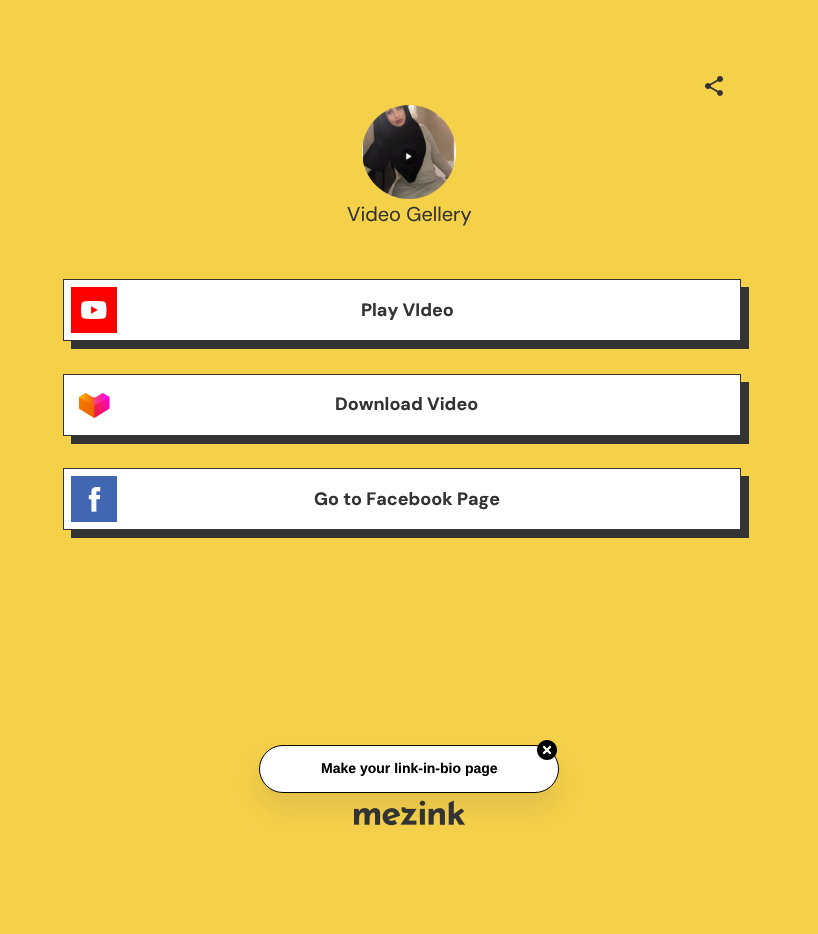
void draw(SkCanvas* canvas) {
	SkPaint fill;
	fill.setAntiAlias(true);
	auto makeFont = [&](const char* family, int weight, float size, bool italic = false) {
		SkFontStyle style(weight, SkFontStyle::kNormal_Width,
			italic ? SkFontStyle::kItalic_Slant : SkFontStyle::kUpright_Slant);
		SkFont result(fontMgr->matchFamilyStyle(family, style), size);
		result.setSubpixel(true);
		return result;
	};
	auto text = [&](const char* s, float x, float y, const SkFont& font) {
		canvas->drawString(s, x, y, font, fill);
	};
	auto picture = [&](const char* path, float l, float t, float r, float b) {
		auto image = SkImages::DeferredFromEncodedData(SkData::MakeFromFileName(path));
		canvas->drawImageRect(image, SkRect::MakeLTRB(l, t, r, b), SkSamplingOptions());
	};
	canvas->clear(0xFFF5D049);
	picture("image0.png", 705, 76, 723, 96);
	picture("image1.png", 362, 105, 456, 199);
	fill.setColor(0xFF333333);
	canvas->drawPath(SkPathBuilder().moveTo(71, 341).lineTo(71, 349).lineTo(749, 349).lineTo(749, 287).lineTo(741, 287).lineTo(741, 341).close().detach(), fill);
	fill.setColor(0xFFFFFFFF);
	canvas->drawRect(SkRect::MakeLTRB(63.5f, 279.5f, 740.5f, 340.5f), fill);
	fill.setStyle(SkPaint::kStroke_Style);
	fill.setStrokeWidth(1);
	fill.setColor(0xFF333333);
	canvas->drawRect(SkRect::MakeLTRB(63.5f, 279.5f, 740.5f, 340.5f), fill);
	picture("image2.png", 71, 287, 117, 333);
	fill.setStyle(SkPaint::kFill_Style);
	canvas->drawPath(SkPathBuilder().moveTo(71, 436).lineTo(71, 444).lineTo(749, 444).lineTo(749, 382).lineTo(741, 382).lineTo(741, 436).close().detach(), fill);
	fill.setColor(0xFFFFFFFF);
	canvas->drawRect(SkRect::MakeLTRB(63.5f, 374.5f, 740.5f, 435.5f), fill);
	fill.setStyle(SkPaint::kStroke_Style);
	fill.setColor(0xFF333333);
	canvas->drawRect(SkRect::MakeLTRB(63.5f, 374.5f, 740.5f, 435.5f), fill);
	picture("image3.png", 79, 393, 110, 418);
	fill.setStyle(SkPaint::kFill_Style);
	canvas->drawPath(SkPathBuilder().moveTo(71, 530).lineTo(71, 538).lineTo(749, 538).lineTo(749, 476).lineTo(741, 476).lineTo(741, 530).close().detach(), fill);
	fill.setColor(0xFFFFFFFF);
	canvas->drawRect(SkRect::MakeLTRB(63.5f, 468.5f, 740.5f, 529.5f), fill);
	fill.setStyle(SkPaint::kStroke_Style);
	fill.setColor(0xFF333333);
	canvas->drawRect(SkRect::MakeLTRB(63.5f, 468.5f, 740.5f, 529.5f), fill);
	picture("image4.png", 71, 476, 117, 522);
	picture("image6.png", 354, 800, 465, 826);
	fill.setStyle(SkPaint::kFill_Style);
	fill.setColor(0x1A191F3D);
	fill.setMaskFilter(SkMaskFilter::MakeBlur(kNormal_SkBlurStyle, 14));
	canvas->drawRoundRect(SkRect::MakeLTRB(259, 759, 559, 807), 24, 24, fill);
	fill.setMaskFilter(nullptr);
	fill.setColor(0xFFFFFFFF);
	canvas->drawRoundRect(SkRect::MakeLTRB(259.5f, 745.5f, 558.5f, 792.5f), 23.5f, 23.5f, fill);
	fill.setStyle(SkPaint::kStroke_Style);
	fill.setColor(0xFF000000);
	canvas->drawRoundRect(SkRect::MakeLTRB(259.5f, 745.5f, 558.5f, 792.5f), 23.5f, 23.5f, fill);
	picture("image5.png", 537, 740, 557, 760);
	auto font1 = makeFont("DM Sans", 400, 20);
	fill.setStyle(SkPaint::kFill_Style);
	fill.setColor(0xFF333333);
	text("Video Gellery", 347, 221, font1);
	auto font2 = makeFont("DM Sans", 700, 18);
	text("Play VIdeo", 361, 316, font2);
	text("Download Video", 335, 410, font2);
	text("Go to Facebook Page", 314, 505, font2);
	auto font3 = makeFont("Arimo", 700, 14);
	fill.setColor(0xFF000000);
	text("Make your link-in-bio page", 321, 773, font3);
}
